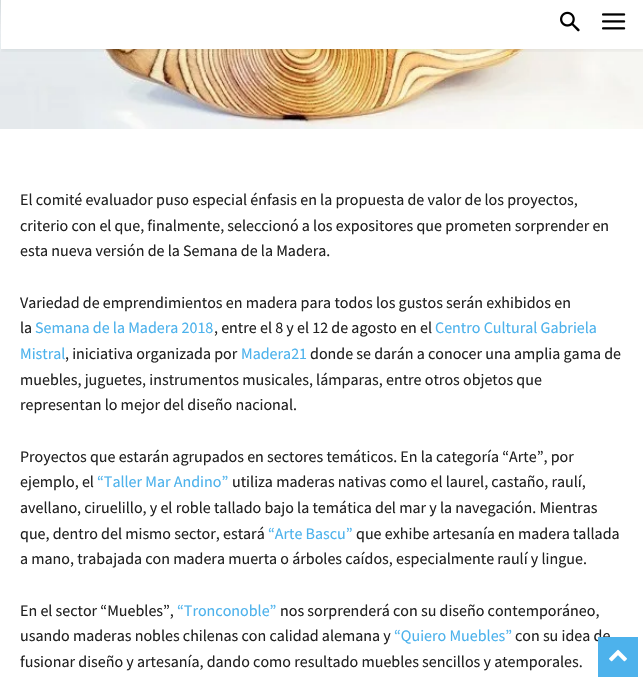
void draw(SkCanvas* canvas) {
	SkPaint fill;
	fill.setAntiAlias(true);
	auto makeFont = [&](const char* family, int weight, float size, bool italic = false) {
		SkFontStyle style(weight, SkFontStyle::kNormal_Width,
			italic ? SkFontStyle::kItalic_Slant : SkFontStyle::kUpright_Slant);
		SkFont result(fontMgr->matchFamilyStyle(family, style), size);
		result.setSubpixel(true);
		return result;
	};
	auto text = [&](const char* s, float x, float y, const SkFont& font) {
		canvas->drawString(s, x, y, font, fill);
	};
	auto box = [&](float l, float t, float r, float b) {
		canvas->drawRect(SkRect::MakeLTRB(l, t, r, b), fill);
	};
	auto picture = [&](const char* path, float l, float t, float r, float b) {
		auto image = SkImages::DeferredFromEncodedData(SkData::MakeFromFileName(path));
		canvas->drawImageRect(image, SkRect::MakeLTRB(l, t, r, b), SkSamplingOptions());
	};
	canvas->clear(0xFFFFFFFF);
	picture("image2.png", 0, 0, 643, 129);
	fill.setColor(0xFFFFFFFF);
	box(1, 0, 643, 49);
	picture("image0.png", 560, 11, 580, 32);
	picture("image1.png", 602, 13, 626, 30);
	canvas->save();
	canvas->clipRect(SkRect::MakeLTRB(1, 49, 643, 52));
	fill.setColor(0x0F000000);
	fill.setMaskFilter(SkMaskFilter::MakeBlur(kNormal_SkBlurStyle, 2));
	canvas->drawRect(SkRect::MakeLTRB(1, 2, 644, 51), fill);
	fill.setMaskFilter(nullptr);
	canvas->restore();
	auto font1 = makeFont("Source Sans Pro", 400, 16);
	fill.setColor(0xFF222222);
	text("El comité evaluador puso especial énfasis en la propuesta de valor de los proyectos,", 20, 205, font1);
	text("criterio con el que, finalmente, seleccionó a los expositores que prometen sorprender en", 20, 231, font1);
	text("esta nueva versión de la Semana de la Madera.", 20, 256, font1);
	text("Variedad de emprendimientos en madera para todos los gustos serán exhibidos en", 20, 308, font1);
	text("la", 20, 333, font1);
	fill.setColor(0xFF4DB2EC);
	text("Semana de la Madera 2018", 35, 333, font1);
	fill.setColor(0xFF222222);
	text(", entre el 8 y el 12 de agosto en el", 214, 333, font1);
	fill.setColor(0xFF4DB2EC);
	text("Centro Cultural Gabriela", 435, 333, font1);
	text("Mistral", 20, 359, font1);
	fill.setColor(0xFF222222);
	text(", iniciativa organizada por", 65, 359, font1);
	fill.setColor(0xFF4DB2EC);
	text("Madera21", 241, 359, font1);
	fill.setColor(0xFF222222);
	text("donde se darán a conocer una amplia gama de", 310, 359, font1);
	text("muebles, juguetes, instrumentos musicales, lámparas, entre otros objetos que", 20, 385, font1);
	text("representan lo mejor del diseño nacional.", 20, 410, font1);
	text("Proyectos que estarán agrupados en sectores temáticos. En la categoría “Arte”, por", 20, 462, font1);
	text("ejemplo, el", 20, 487, font1);
	fill.setColor(0xFF4DB2EC);
	text("“Taller Mar Andino”", 97, 487, font1);
	fill.setColor(0xFF222222);
	text("utiliza maderas nativas como el laurel, castaño, raulí,", 232, 487, font1);
	text("avellano, ciruelillo, y el roble tallado bajo la temática del mar y la navegación. Mientras", 20, 513, font1);
	text("que, dentro del mismo sector, estará", 20, 539, font1);
	fill.setColor(0xFF4DB2EC);
	text("“Arte Bascu”", 268, 539, font1);
	fill.setColor(0xFF222222);
	text("que exhibe artesanía en madera tallada", 356, 539, font1);
	text("a mano, trabajada con madera muerta o árboles caídos, especialmente raulí y lingue.", 20, 564, font1);
	text("En el sector “Muebles”,", 20, 616, font1);
	fill.setColor(0xFF4DB2EC);
	text("“Tronconoble”", 177, 616, font1);
	fill.setColor(0xFF222222);
	text("nos sorprenderá con su diseño contemporáneo,", 280, 616, font1);
	text("usando maderas nobles chilenas con calidad alemana y", 20, 641, font1);
	fill.setColor(0xFF4DB2EC);
	text("“Quiero Muebles”", 394, 641, font1);
	fill.setColor(0xFF222222);
	text("con su idea de", 515, 641, font1);
	text("fusionar diseño y artesanía, dando como resultado muebles sencillos y atemporales.", 20, 667, font1);
	fill.setColor(0xFF4DB2EC);
	box(598, 637, 638, 677);
	picture("image3.png", 609, 649, 627, 662);
}
